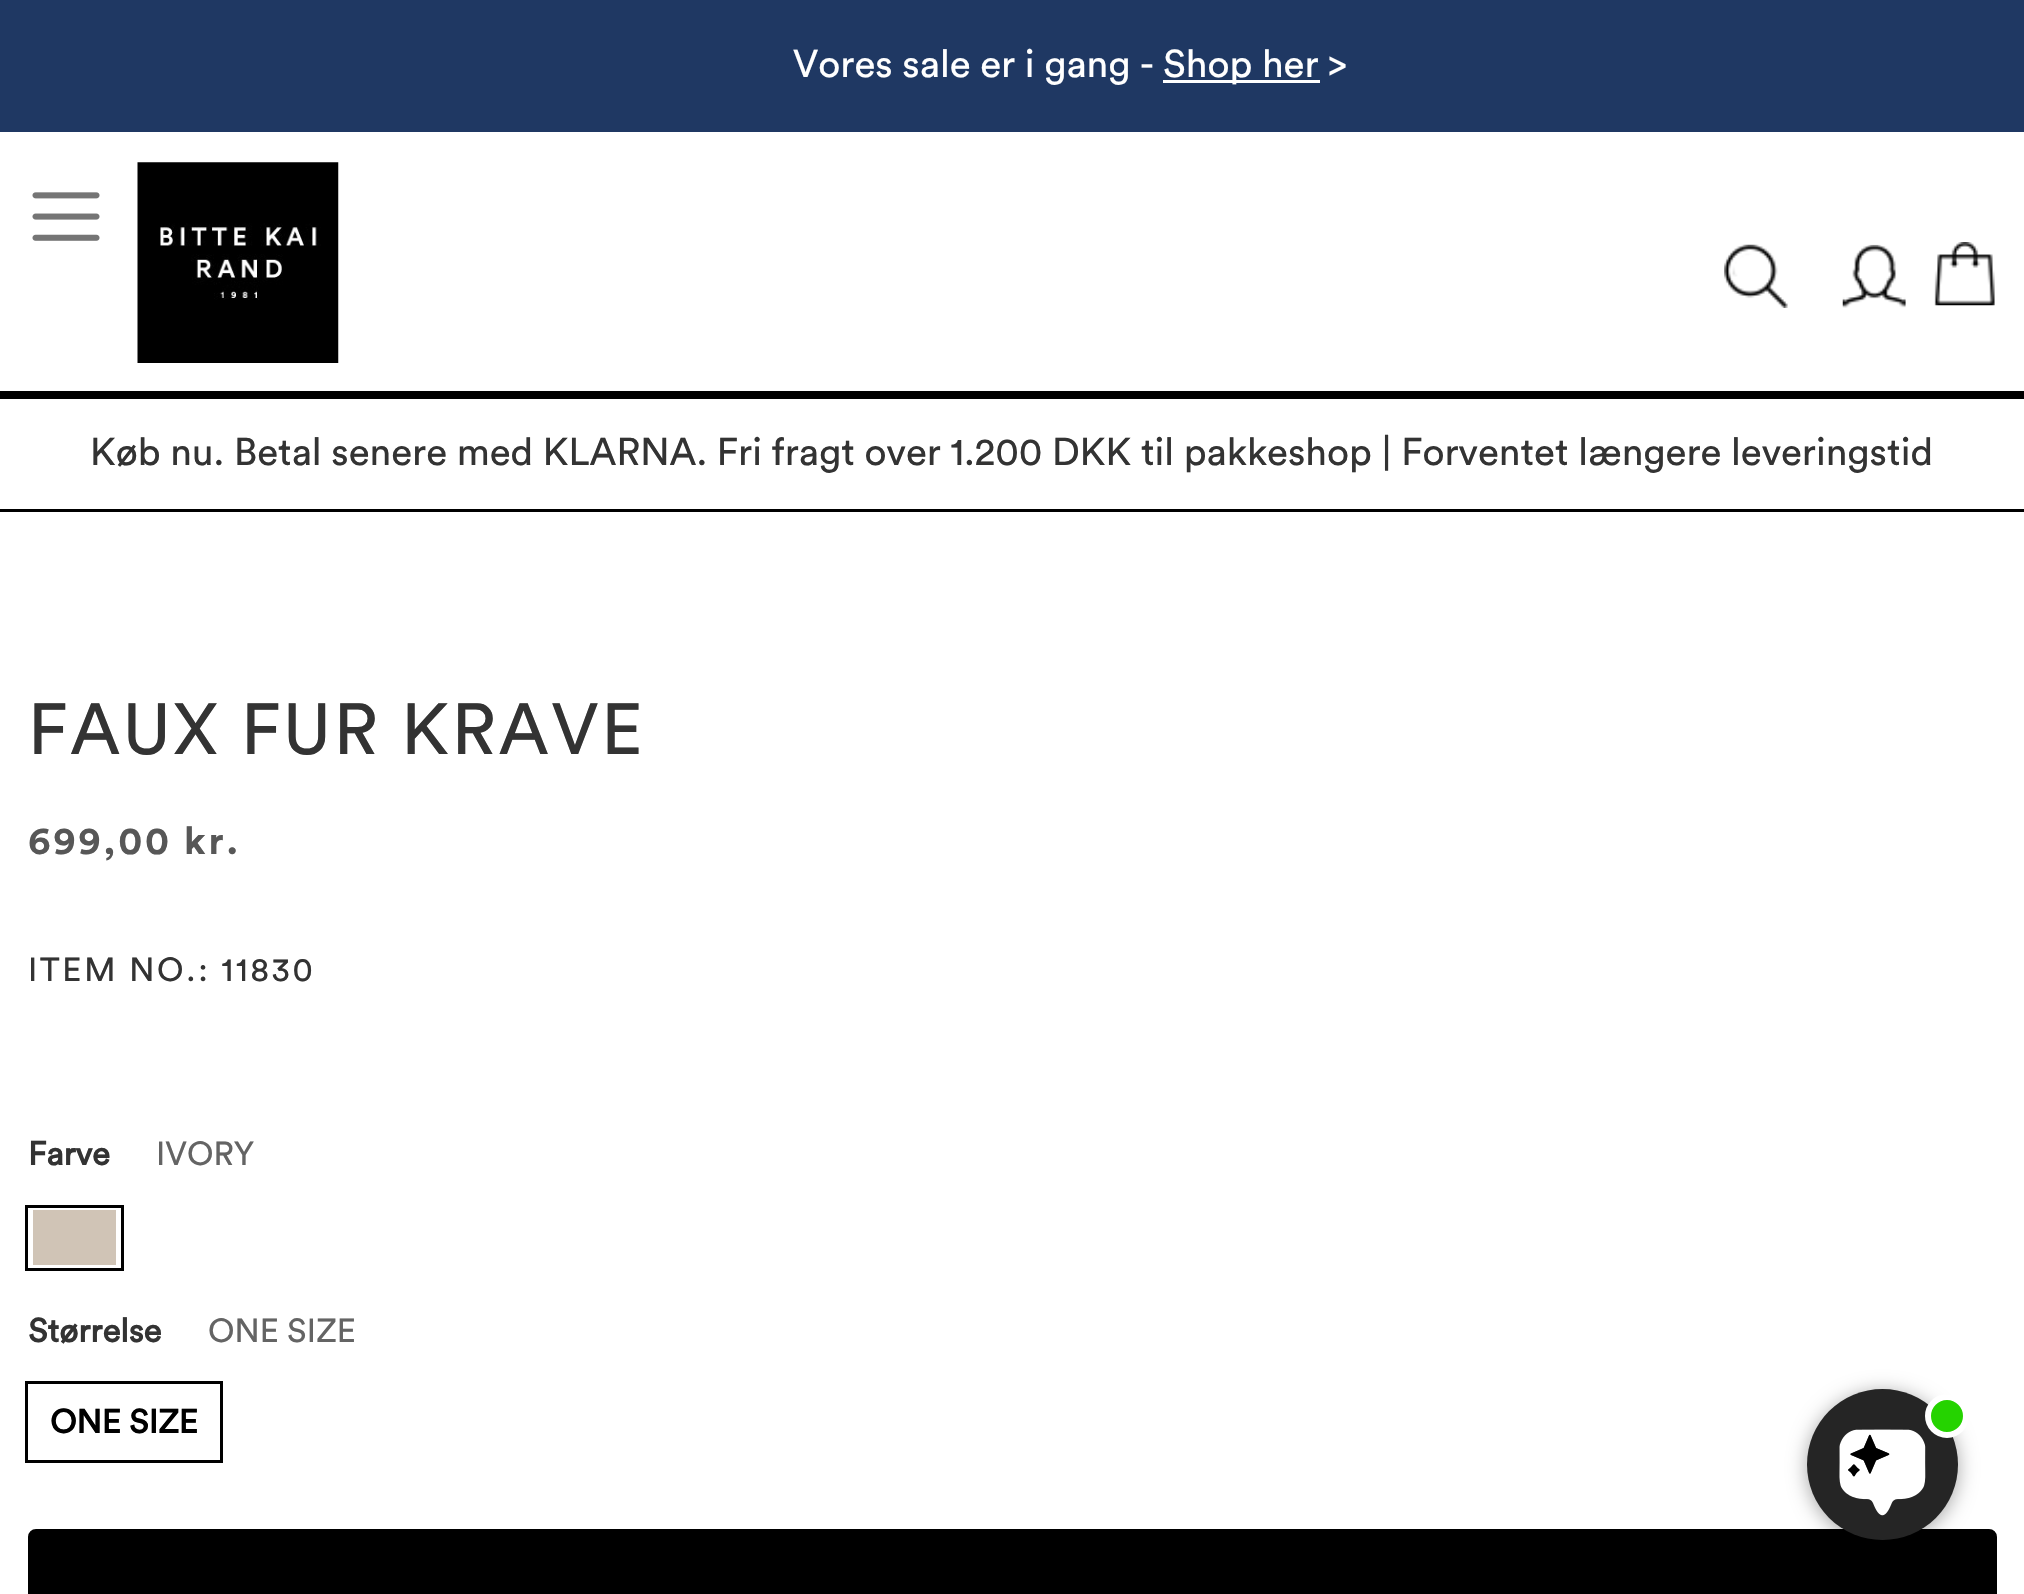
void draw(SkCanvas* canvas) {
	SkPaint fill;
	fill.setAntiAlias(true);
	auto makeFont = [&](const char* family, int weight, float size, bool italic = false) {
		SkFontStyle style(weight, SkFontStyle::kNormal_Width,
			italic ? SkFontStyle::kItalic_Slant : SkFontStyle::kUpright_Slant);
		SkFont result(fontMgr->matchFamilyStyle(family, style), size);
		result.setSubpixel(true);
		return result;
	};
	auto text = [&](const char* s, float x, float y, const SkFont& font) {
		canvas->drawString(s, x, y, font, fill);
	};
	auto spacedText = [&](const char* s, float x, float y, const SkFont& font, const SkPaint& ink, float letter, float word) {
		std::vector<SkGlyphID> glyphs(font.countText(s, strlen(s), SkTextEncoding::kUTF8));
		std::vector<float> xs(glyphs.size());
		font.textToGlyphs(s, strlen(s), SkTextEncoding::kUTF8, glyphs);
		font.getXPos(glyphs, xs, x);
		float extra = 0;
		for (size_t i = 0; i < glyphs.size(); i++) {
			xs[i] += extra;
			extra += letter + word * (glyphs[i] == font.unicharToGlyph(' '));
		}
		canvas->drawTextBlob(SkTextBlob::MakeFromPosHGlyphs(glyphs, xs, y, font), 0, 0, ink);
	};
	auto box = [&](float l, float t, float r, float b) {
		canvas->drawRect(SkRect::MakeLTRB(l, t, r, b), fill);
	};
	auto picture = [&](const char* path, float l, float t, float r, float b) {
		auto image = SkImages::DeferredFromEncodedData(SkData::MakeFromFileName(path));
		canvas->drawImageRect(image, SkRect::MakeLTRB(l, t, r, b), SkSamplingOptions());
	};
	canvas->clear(0xFFFFFFFF);
	fill.setColor(0xFF1F3863);
	box(0, 0, 2024, 132);
	fill.setColor(0xFFFFFFFF);
	box(1163, 80, 1320, 83);
	picture("image0.png", 32, 192, 100, 241);
	picture("image1.png", 137, 162, 339, 363);
	picture("image2.png", 1724, 244, 1788, 308);
	picture("image3.png", 1842, 244, 1906, 308);
	picture("image4.png", 1934, 242, 1995, 306);
	fill.setColor(0xFF000000);
	box(0, 391, 2024, 399);
	box(0, 509, 2024, 512);
	fill.setColor(0xFFD0C4B6);
	box(33, 1210, 116, 1265);
	fill.setStyle(SkPaint::kStroke_Style);
	fill.setStrokeWidth(3);
	fill.setColor(0xFF000000);
	canvas->drawRect(SkRect::MakeLTRB(26.5f, 1206.5f, 122.5f, 1269.5f), fill);
	canvas->drawRect(SkRect::MakeLTRB(26.5f, 1382.5f, 221.5f, 1461.5f), fill);
	fill.setStyle(SkPaint::kFill_Style);
	canvas->drawRoundRect(SkRect::MakeLTRB(29.5f, 1530.5f, 1995.5f, 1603.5f), 6.5f, 6.5f, fill);
	fill.setStyle(SkPaint::kStroke_Style);
	canvas->drawRoundRect(SkRect::MakeLTRB(29.5f, 1530.5f, 1995.5f, 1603.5f), 6.5f, 6.5f, fill);
	fill.setStyle(SkPaint::kFill_Style);
	fill.setColor(0x59000000);
	fill.setMaskFilter(SkMaskFilter::MakeBlur(kNormal_SkBlurStyle, 9.5f));
	canvas->drawRoundRect(SkRect::MakeLTRB(1807, 1392, 1958, 1543), 75.5f, 75.5f, fill);
	fill.setMaskFilter(nullptr);
	fill.setColor(0xFF252525);
	canvas->drawCircle(1882.5f, 1464.5f, 75.5f, fill);
	picture("image5.png", 1839, 1429, 1926, 1516);
	fill.setColor(0xFF25D300);
	canvas->drawCircle(1947, 1416, 19, fill);
	fill.setStyle(SkPaint::kStroke_Style);
	fill.setStrokeWidth(6);
	fill.setColor(0xFFFFFFFF);
	canvas->drawCircle(1947, 1416, 19, fill);
	auto font1 = makeFont("Circular", 400, 38.5f);
	fill.setStyle(SkPaint::kFill_Style);
	text("Vores sale er i gang -", 793, 77, font1);
	text("Shop her >", 1163, 77, font1);
	fill.setColor(0xFF333333);
	text("Køb nu. Betal senere med KLARNA. Fri fragt over 1.200 DKK til pakkeshop | Forventet længere leveringstid", 90, 465, font1);
	auto font2 = makeFont("Circular", 400, 71.5f);
	spacedText("FAUX FUR KRAVE", 28, 754, font2, fill, 2.75f, 0);
	auto font3 = makeFont("Circular", 700, 38.5f);
	fill.setColor(0xFF575757);
	spacedText("699,00 kr.", 28, 854, font3, fill, 2.75f, 0);
	auto font4 = makeFont("Circular", 400, 33);
	fill.setColor(0xFF333333);
	spacedText("ITEM NO.: 11830", 28, 981, font4, fill, 2.75f, 0);
	auto font5 = makeFont("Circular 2", 700, 33);
	text("Farve", 28, 1165, font5);
	fill.setColor(0xFF646464);
	text("IVORY", 156, 1165, font4);
	fill.setColor(0xFF333333);
	text("Størrelse", 28, 1342, font5);
	fill.setColor(0xFF646464);
	text("ONE SIZE", 208, 1342, font4);
	fill.setColor(0xFF000000);
	text("ONE SIZE", 50, 1433, font5);
}
